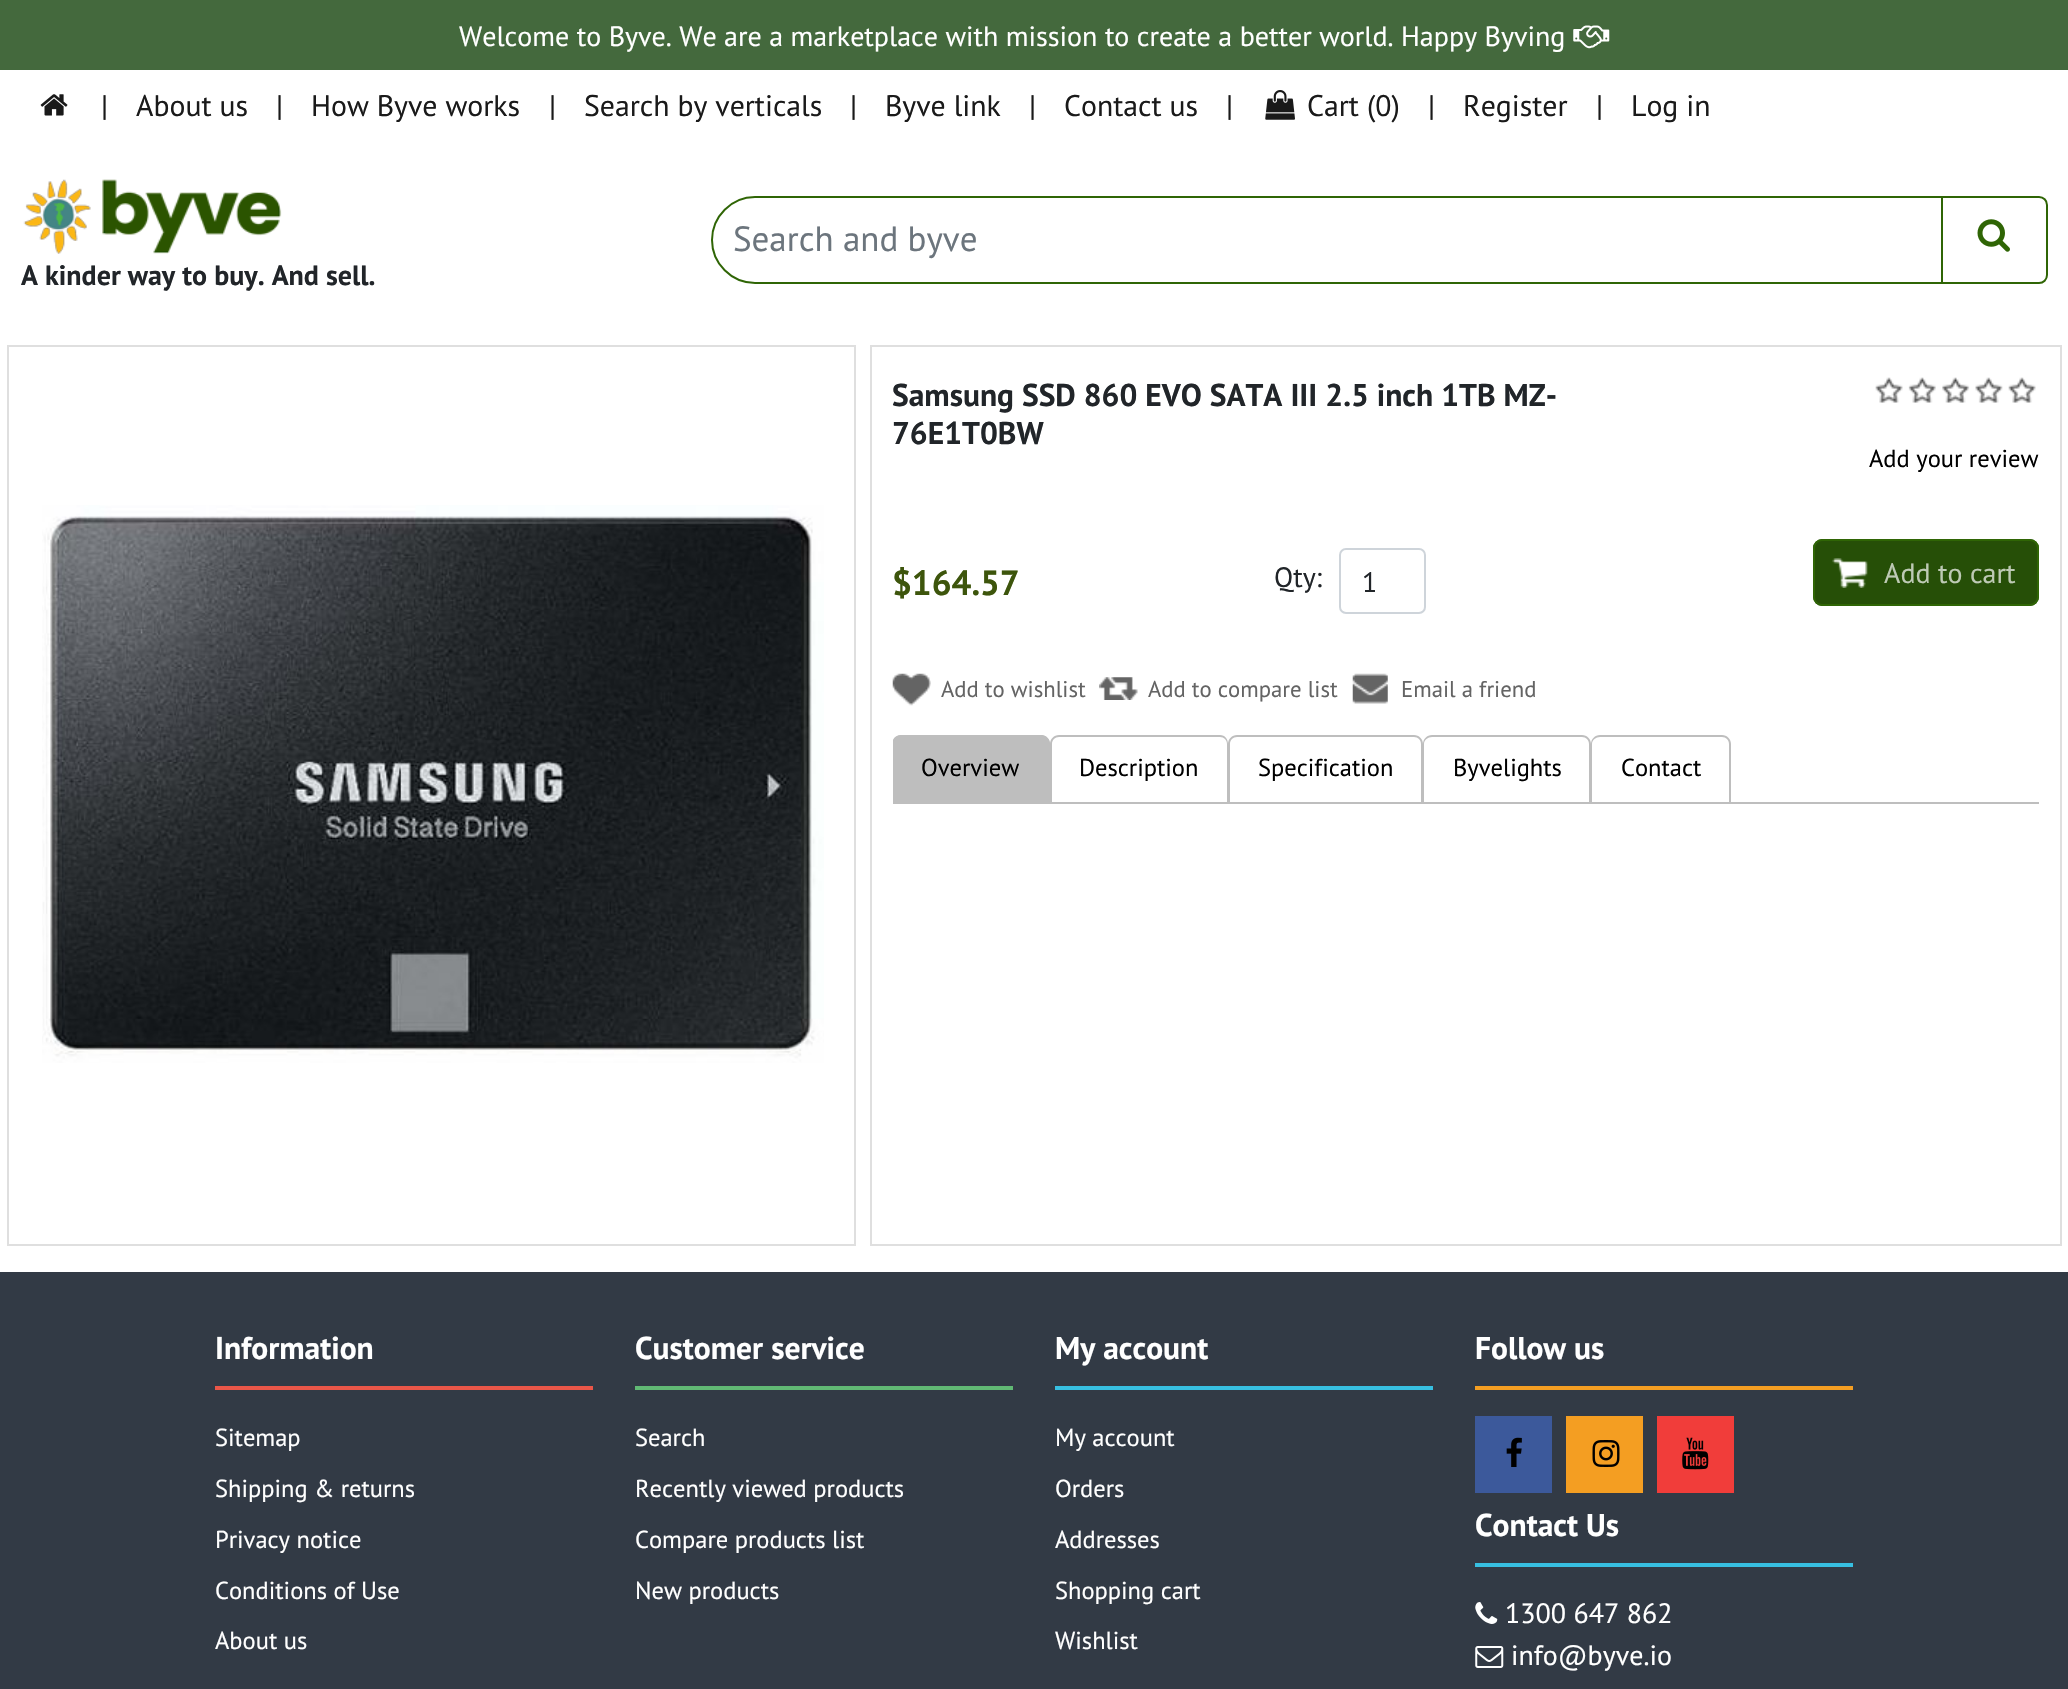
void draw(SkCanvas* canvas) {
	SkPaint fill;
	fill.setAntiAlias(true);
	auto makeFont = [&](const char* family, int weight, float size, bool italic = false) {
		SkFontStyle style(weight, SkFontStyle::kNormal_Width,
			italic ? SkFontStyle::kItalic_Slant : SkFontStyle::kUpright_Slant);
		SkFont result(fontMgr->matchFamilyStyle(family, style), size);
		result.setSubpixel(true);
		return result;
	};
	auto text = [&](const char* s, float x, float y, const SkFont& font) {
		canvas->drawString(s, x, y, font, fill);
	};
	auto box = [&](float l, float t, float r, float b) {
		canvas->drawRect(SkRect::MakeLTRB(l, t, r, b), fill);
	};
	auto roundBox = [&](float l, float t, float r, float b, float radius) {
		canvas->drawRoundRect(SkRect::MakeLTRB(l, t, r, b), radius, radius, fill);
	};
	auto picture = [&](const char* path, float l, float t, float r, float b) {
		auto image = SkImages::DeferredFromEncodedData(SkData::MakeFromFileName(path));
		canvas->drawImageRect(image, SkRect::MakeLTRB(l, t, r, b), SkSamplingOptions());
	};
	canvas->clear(0xFFFFFFFF);
	fill.setColor(0xFF44693D);
	box(0, 0, 2068, 70);
	picture("image0.png", 1573, 25, 1610, 49);
	picture("image1.png", 40, 94, 68, 116);
	picture("image2.png", 1265, 90, 1295, 120);
	fill.setStyle(SkPaint::kStroke_Style);
	fill.setStrokeWidth(2);
	fill.setColor(0xFF2F6505);
	canvas->drawPath(SkPathBuilder().moveTo(755, 197).lineTo(1942, 197).lineTo(1942, 283).lineTo(755, 283).cubicTo(731.5f, 283, 712, 263.5f, 712, 240).cubicTo(712, 216.5f, 731.5f, 197, 755, 197).close().detach(), fill);
	fill.setStyle(SkPaint::kFill_Style);
	fill.setColor(0xFFFFFFFF);
	canvas->drawPath(SkPathBuilder().moveTo(1942, 197).lineTo(2039, 197).cubicTo(2043.5f, 197, 2047, 200.5f, 2047, 205).lineTo(2047, 275).cubicTo(2047, 279.5f, 2043.5f, 283, 2039, 283).lineTo(1942, 283).close().detach(), fill);
	fill.setStyle(SkPaint::kStroke_Style);
	fill.setColor(0xFF2F6505);
	canvas->drawPath(SkPathBuilder().moveTo(1942, 197).lineTo(2039, 197).cubicTo(2043.5f, 197, 2047, 200.5f, 2047, 205).lineTo(2047, 275).cubicTo(2047, 279.5f, 2043.5f, 283, 2039, 283).lineTo(1942, 283).close().detach(), fill);
	picture("image3.png", 1977, 219, 2010, 252);
	picture("image4.png", 23, 179, 282, 254);
	fill.setColor(0xFFDFDFDF);
	canvas->drawRect(SkRect::MakeLTRB(8, 346, 855, 1245), fill);
	picture("image5.png", 42, 505, 824, 1063);
	canvas->drawRect(SkRect::MakeLTRB(871, 346, 2061, 1245), fill);
	picture("image6.png", 1875, 377, 2036, 403);
	fill.setColor(0xFFCED4DA);
	canvas->drawRoundRect(SkRect::MakeLTRB(1340, 549, 1425, 613), 6, 6, fill);
	fill.setStyle(SkPaint::kFill_Style);
	fill.setColor(0xFF264F07);
	roundBox(1813, 539, 2039, 606, 9);
	picture("image7.png", 1832, 558, 1868, 588);
	fill.setStyle(SkPaint::kStroke_Style);
	fill.setColor(0xFF2F6505);
	canvas->drawRoundRect(SkRect::MakeLTRB(1814, 540, 2038, 605), 8, 8, fill);
	picture("image8.png", 892, 673, 931, 706);
	picture("image9.png", 1099, 677, 1138, 700);
	picture("image10.png", 1352, 673, 1388, 704);
	fill.setStyle(SkPaint::kFill_Style);
	fill.setColor(0xFFBEBEBE);
	box(893, 802, 2039, 804);
	canvas->drawPath(SkPathBuilder().moveTo(902, 735).lineTo(1041, 735).cubicTo(1046, 735, 1050, 739, 1050, 744).lineTo(1050, 802).lineTo(893, 802).lineTo(893, 744).cubicTo(893, 739, 897, 735, 902, 735).close().detach(), fill);
	canvas->save();
	canvas->clipRect(SkRect::MakeLTRB(893, 368, 2039, 1223));
	canvas->drawPath(SkPathBuilder(SkPathFillType::kEvenOdd).moveTo(901, 735).lineTo(1041, 735).cubicTo(1046, 735, 1050, 739, 1050, 744).lineTo(1050, 802).lineTo(892, 802).lineTo(892, 744).cubicTo(892, 739, 896, 735, 901, 735).close().moveTo(901, 737).lineTo(1041, 737).cubicTo(1045, 737, 1048, 740, 1048, 744).lineTo(1048, 802).lineTo(894, 802).lineTo(894, 744).cubicTo(894, 740, 897, 737, 901, 737).close().detach(), fill);
	canvas->restore();
	canvas->drawPath(SkPathBuilder(SkPathFillType::kEvenOdd).moveTo(1059, 735).lineTo(1220, 735).cubicTo(1225, 735, 1228, 739, 1228, 744).lineTo(1228, 802).lineTo(1050, 802).lineTo(1050, 744).cubicTo(1050, 739, 1054, 735, 1059, 735).close().moveTo(1059, 737).lineTo(1220, 737).cubicTo(1224, 737, 1227, 740, 1227, 744).lineTo(1227, 802).lineTo(1052, 802).lineTo(1052, 744).cubicTo(1052, 740, 1055, 737, 1059, 737).close().detach(), fill);
	canvas->drawPath(SkPathBuilder(SkPathFillType::kEvenOdd).moveTo(1237, 735).lineTo(1414, 735).cubicTo(1419, 735, 1423, 739, 1423, 744).lineTo(1423, 802).lineTo(1228, 802).lineTo(1228, 744).cubicTo(1228, 739, 1232, 735, 1237, 735).close().moveTo(1237, 737).lineTo(1414, 737).cubicTo(1418, 737, 1421, 740, 1421, 744).lineTo(1421, 802).lineTo(1230, 802).lineTo(1230, 744).cubicTo(1230, 740, 1233, 737, 1237, 737).close().detach(), fill);
	canvas->drawPath(SkPathBuilder(SkPathFillType::kEvenOdd).moveTo(1432, 735).lineTo(1582, 735).cubicTo(1587, 735, 1591, 739, 1591, 744).lineTo(1591, 802).lineTo(1423, 802).lineTo(1423, 744).cubicTo(1423, 739, 1427, 735, 1432, 735).close().moveTo(1432, 737).lineTo(1582, 737).cubicTo(1586, 737, 1589, 740, 1589, 744).lineTo(1589, 802).lineTo(1424, 802).lineTo(1424, 744).cubicTo(1424, 740, 1428, 737, 1432, 737).close().detach(), fill);
	canvas->drawPath(SkPathBuilder(SkPathFillType::kEvenOdd).moveTo(1600, 735).lineTo(1722, 735).cubicTo(1727, 735, 1731, 739, 1731, 744).lineTo(1731, 802).lineTo(1591, 802).lineTo(1591, 744).cubicTo(1591, 739, 1595, 735, 1600, 735).close().moveTo(1600, 737).lineTo(1722, 737).cubicTo(1726, 737, 1729, 740, 1729, 744).lineTo(1729, 802).lineTo(1592, 802).lineTo(1592, 744).cubicTo(1592, 740, 1596, 737, 1600, 737).close().detach(), fill);
	fill.setColor(0xFF323A45);
	box(0, 1272, 2068, 1689);
	fill.setColor(0xFFEA5648);
	box(215, 1386, 593, 1390);
	fill.setColor(0xFF61B974);
	box(635, 1386, 1013, 1390);
	fill.setColor(0xFF37BFE1);
	box(1055, 1386, 1433, 1390);
	fill.setColor(0xFFF49E22);
	box(1475, 1386, 1853, 1390);
	fill.setColor(0xFF3C599B);
	box(1475, 1416, 1552, 1493);
	picture("image11.png", 1506, 1437, 1522, 1467);
	fill.setColor(0xFFF49E22);
	box(1566, 1416, 1643, 1493);
	picture("image12.png", 1592, 1440, 1620, 1467);
	fill.setColor(0xFFF13D3A);
	box(1657, 1416, 1734, 1493);
	picture("image13.png", 1682, 1437, 1709, 1470);
	fill.setColor(0xFF37BFE1);
	box(1475, 1563, 1853, 1567);
	picture("image14.png", 1475, 1602, 1498, 1624);
	picture("image15.png", 1475, 1646, 1504, 1668);
	auto font1 = makeFont("PT Sans", 400, 28);
	fill.setColor(0xFFFFFFFF);
	text("Welcome to Byve. We are a marketplace with mission to create a better world. Happy Byving", 459, 46, font1);
	auto font2 = makeFont("PT Sans", 400, 29.75f);
	fill.setColor(0xFF1A1A1A);
	text("|", 101, 116, font2);
	text("About us", 136, 116, font2);
	text("|", 276, 116, font2);
	text("How Byve works", 311, 116, font2);
	text("|", 549, 116, font2);
	text("Search by verticals", 584, 116, font2);
	text("|", 850, 116, font2);
	text("Byve link", 885, 116, font2);
	text("|", 1029, 116, font2);
	text("Contact us", 1064, 116, font2);
	text("|", 1226, 116, font2);
	text("Cart (0)", 1307, 116, font2);
	text("|", 1428, 116, font2);
	text("Register", 1463, 116, font2);
	text("|", 1596, 116, font2);
	text("Log in", 1631, 116, font2);
	auto font3 = makeFont("PT Sans", 400, 35);
	fill.setColor(0xFF6C757D);
	text("Search and byve", 733, 251, font3);
	auto font4 = makeFont("PT Sans", 700, 28);
	fill.setColor(0xFF212529);
	text("A kinder way to buy. And sell.", 21, 285, font4);
	auto font5 = makeFont("PT Sans", 700, 31.5f);
	text("Samsung SSD 860 EVO SATA III 2.5 inch 1TB MZ-", 892, 406, font5);
	text("76E1T0BW", 892, 444, font5);
	auto font6 = makeFont("PT Sans", 400, 24.5f);
	fill.setColor(0xFF000000);
	text("Add your review", 1869, 467, font6);
	auto font7 = makeFont("PT Sans", 700, 35);
	fill.setColor(0xFF3D550C);
	text("$164.57", 892, 595, font7);
	fill.setColor(0xFF212529);
	text("Qty:", 1274, 587, font1);
	text("1", 1362, 592, font1);
	fill.setColor(0xFFBECAB5);
	text("Add to cart", 1884, 583, font1);
	auto font8 = makeFont("PT Sans", 400, 22.75f);
	fill.setColor(0xFF646464);
	text("Add to wishlist", 941, 697, font8);
	text("Add to compare list", 1148, 697, font8);
	text("Email a friend", 1401, 697, font8);
	fill.setColor(0xFF000000);
	text("Overview", 921, 776, font6);
	text("Description", 1079, 776, font6);
	text("Specification", 1258, 776, font6);
	text("Byvelights", 1453, 776, font6);
	text("Contact", 1621, 776, font6);
	fill.setColor(0xFFFFFFFF);
	text("Information", 215, 1359, font5);
	text("Sitemap", 215, 1446, font6);
	text("Shipping & returns", 215, 1497, font6);
	text("Privacy notice", 215, 1548, font6);
	text("Conditions of Use", 215, 1599, font6);
	text("About us", 215, 1649, font6);
	text("Customer service", 635, 1359, font5);
	text("Search", 635, 1446, font6);
	text("Recently viewed products", 635, 1497, font6);
	text("Compare products list", 635, 1548, font6);
	text("New products", 635, 1599, font6);
	text("My account", 1055, 1359, font5);
	text("My account", 1055, 1446, font6);
	text("Orders", 1055, 1497, font6);
	text("Addresses", 1055, 1548, font6);
	text("Shopping cart", 1055, 1599, font6);
	text("Wishlist", 1055, 1649, font6);
	text("Follow us", 1475, 1359, font5);
	text("Contact Us", 1475, 1536, font5);
	text("1300 647 862", 1505, 1623, font1);
	text("info@byve.io", 1511, 1665, font1);
}
